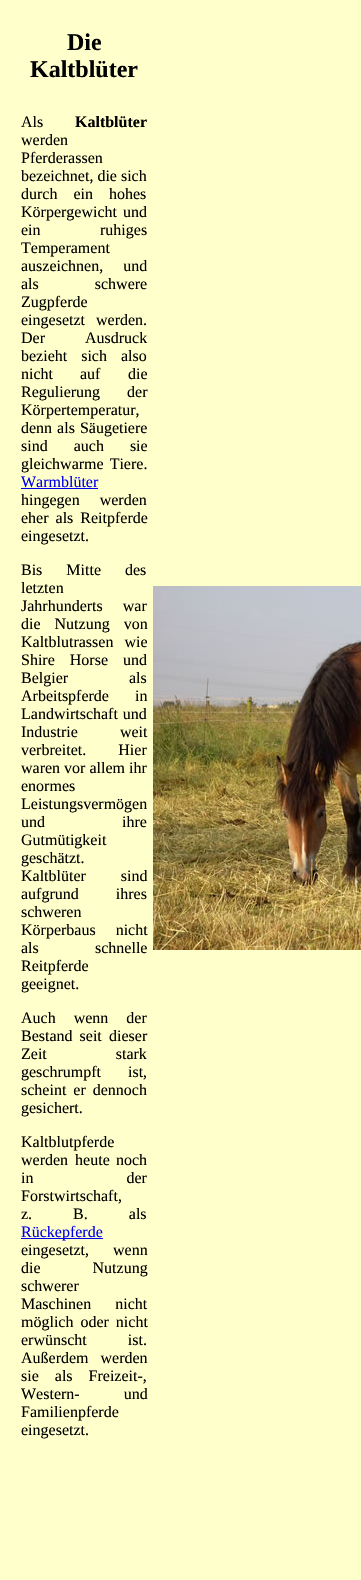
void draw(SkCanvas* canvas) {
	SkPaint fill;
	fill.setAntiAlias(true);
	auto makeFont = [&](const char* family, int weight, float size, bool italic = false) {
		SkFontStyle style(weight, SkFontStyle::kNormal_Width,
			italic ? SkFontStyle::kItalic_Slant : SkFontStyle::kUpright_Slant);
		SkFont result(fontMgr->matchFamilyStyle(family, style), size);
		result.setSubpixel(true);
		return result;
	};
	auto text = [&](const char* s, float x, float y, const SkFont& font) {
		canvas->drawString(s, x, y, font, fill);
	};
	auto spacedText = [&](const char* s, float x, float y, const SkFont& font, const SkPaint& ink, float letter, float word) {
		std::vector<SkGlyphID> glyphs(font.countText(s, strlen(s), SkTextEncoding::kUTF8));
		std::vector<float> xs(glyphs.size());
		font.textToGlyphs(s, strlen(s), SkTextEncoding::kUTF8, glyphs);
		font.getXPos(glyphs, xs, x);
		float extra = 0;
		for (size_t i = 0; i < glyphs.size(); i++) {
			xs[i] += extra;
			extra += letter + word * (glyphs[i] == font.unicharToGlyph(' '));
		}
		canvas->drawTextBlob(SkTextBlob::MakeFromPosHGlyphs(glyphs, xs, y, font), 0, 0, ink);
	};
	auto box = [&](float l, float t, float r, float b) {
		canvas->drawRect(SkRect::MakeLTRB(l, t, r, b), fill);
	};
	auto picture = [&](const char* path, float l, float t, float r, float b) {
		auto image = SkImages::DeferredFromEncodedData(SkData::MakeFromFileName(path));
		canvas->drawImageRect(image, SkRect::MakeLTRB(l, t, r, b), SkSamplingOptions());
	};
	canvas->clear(0xFFFFFFCC);
	fill.setColor(0xFF0000EE);
	box(21, 488, 98, 489);
	box(21, 1238, 103, 1239);
	picture("image0.png", 153, 586, 361, 950);
	auto font1 = makeFont("Liberation Serif", 700, 24);
	fill.setColor(0xFF000000);
	text("Die", 67, 50, font1);
	text("Kaltblüter", 30, 77, font1);
	auto font2 = makeFont("Liberation Serif", 400, 16);
	text("Als", 21, 127, font2);
	auto font3 = makeFont("Liberation Serif", 700, 16);
	text("Kaltblüter", 75, 127, font3);
	text("werden", 21, 145, font2);
	text("Pferderassen", 21, 163, font2);
	text("bezeichnet, die sich", 21, 181, font2);
	spacedText("durch ein hohes", 21, 199, font2, fill, 0, 12);
	spacedText("Körpergewicht und", 21, 217, font2, fill, 0, 2);
	text("ein", 21, 235, font2);
	text("ruhiges", 100, 235, font2);
	text("Temperament", 21, 253, font2);
	spacedText("auszeichnen, und", 21, 271, font2, fill, 0, 16);
	spacedText("als schwere", 21, 289, font2, fill, 0, 52);
	text("Zugpferde", 21, 307, font2);
	spacedText("eingesetzt werden.", 21, 325, font2, fill, 0, 7);
	spacedText("Der Ausdruck", 21, 343, font2, fill, 0, 36);
	spacedText("bezieht sich also", 21, 361, font2, fill, 0, 10);
	spacedText("nicht auf", 21, 379, font2, fill, 0, 23);
	text("die", 128, 379, font2);
	spacedText("Regulierung der", 21, 397, font2, fill, 0, 23);
	text("Körpertemperatur,", 21, 415, font2);
	spacedText("denn als Säugetiere", 21, 433, font2, fill, 0, 1);
	spacedText("sind auch sie", 21, 451, font2, fill, 0, 22);
	spacedText("gleichwarme Tiere.", 21, 469, font2, fill, 0, 2);
	fill.setColor(0xFF0000EE);
	text("Warmblüter", 21, 487, font2);
	fill.setColor(0xFF000000);
	spacedText("hingegen werden", 21, 505, font2, fill, 0, 16);
	spacedText("eher als Reitpferde", 21, 523, font2, fill, 0, 3);
	text("eingesetzt.", 21, 541, font2);
	spacedText("Bis Mitte des", 21, 575, font2, fill, 0, 20);
	text("letzten", 21, 593, font2);
	spacedText("Jahrhunderts war", 21, 611, font2, fill, 0, 16);
	spacedText("die Nutzung von", 21, 629, font2, fill, 0, 10);
	spacedText("Kaltblutrassen wie", 21, 647, font2, fill, 0, 7);
	spacedText("Shire Horse und", 21, 665, font2, fill, 0, 11);
	text("Belgier", 21, 683, font2);
	text("als", 129, 683, font2);
	spacedText("Arbeitspferde in", 21, 701, font2, fill, 0, 22);
	spacedText("Landwirtschaft und", 21, 719, font2, fill, 0, 1);
	spacedText("Industrie weit", 21, 737, font2, fill, 0, 38);
	spacedText("verbreitet. Hier", 21, 755, font2, fill, 0, 28);
	text("waren vor allem ihr", 21, 773, font2);
	text("enormes", 21, 791, font2);
	text("Leistungsvermögen", 21, 809, font2);
	spacedText("und ihre", 21, 827, font2, fill, 0, 73);
	text("Gutmütigkeit", 21, 845, font2);
	text("geschätzt.", 21, 863, font2);
	spacedText("Kaltblüter sind", 21, 881, font2, fill, 0, 31);
	spacedText("aufgrund ihres", 21, 899, font2, fill, 0, 33);
	text("schweren", 21, 917, font2);
	spacedText("Körperbaus nicht", 21, 935, font2, fill, 0, 16);
	text("als", 21, 953, font2);
	text("schnelle", 95, 953, font2);
	text("Reitpferde", 21, 971, font2);
	text("geeignet.", 21, 989, font2);
	spacedText("Auch wenn der", 21, 1023, font2, fill, 0, 14);
	spacedText("Bestand seit", 21, 1041, font2, fill, 0, 3);
	text("dieser", 109, 1041, font2);
	spacedText("Zeit stark", 21, 1059, font2, fill, 0, 65);
	spacedText("geschrumpft ist,", 21, 1077, font2, fill, 0, 23);
	spacedText("scheint er dennoch", 21, 1095, font2, fill, 0, 3);
	text("gesichert.", 21, 1113, font2);
	text("Kaltblutpferde", 21, 1147, font2);
	spacedText("werden heute", 21, 1165, font2, fill, 0, 3);
	text("noch", 116, 1165, font2);
	spacedText("in der", 21, 1183, font2, fill, 0, 89);
	text("Forstwirtschaft,", 21, 1201, font2);
	spacedText("z. B. als", 21, 1219, font2, fill, 0, 37);
	fill.setColor(0xFF0000EE);
	text("Rückepferde", 21, 1237, font2);
	fill.setColor(0xFF000000);
	spacedText("eingesetzt, wenn", 21, 1255, font2, fill, 0, 20);
	spacedText("die Nutzung", 21, 1273, font2, fill, 0, 48);
	text("schwerer", 21, 1291, font2);
	spacedText("Maschinen nicht", 21, 1309, font2, fill, 0, 20);
	spacedText("möglich oder nicht", 21, 1327, font2, fill, 0, 3);
	spacedText("erwünscht ist.", 21, 1345, font2, fill, 0, 37);
	spacedText("Außerdem werden", 21, 1363, font2, fill, 0, 8);
	spacedText("sie als Freizeit-,", 21, 1381, font2, fill, 0, 12);
	spacedText("Western- und", 21, 1399, font2, fill, 0, 40);
	text("Familienpferde", 21, 1417, font2);
	text("eingesetzt.", 21, 1435, font2);
}
